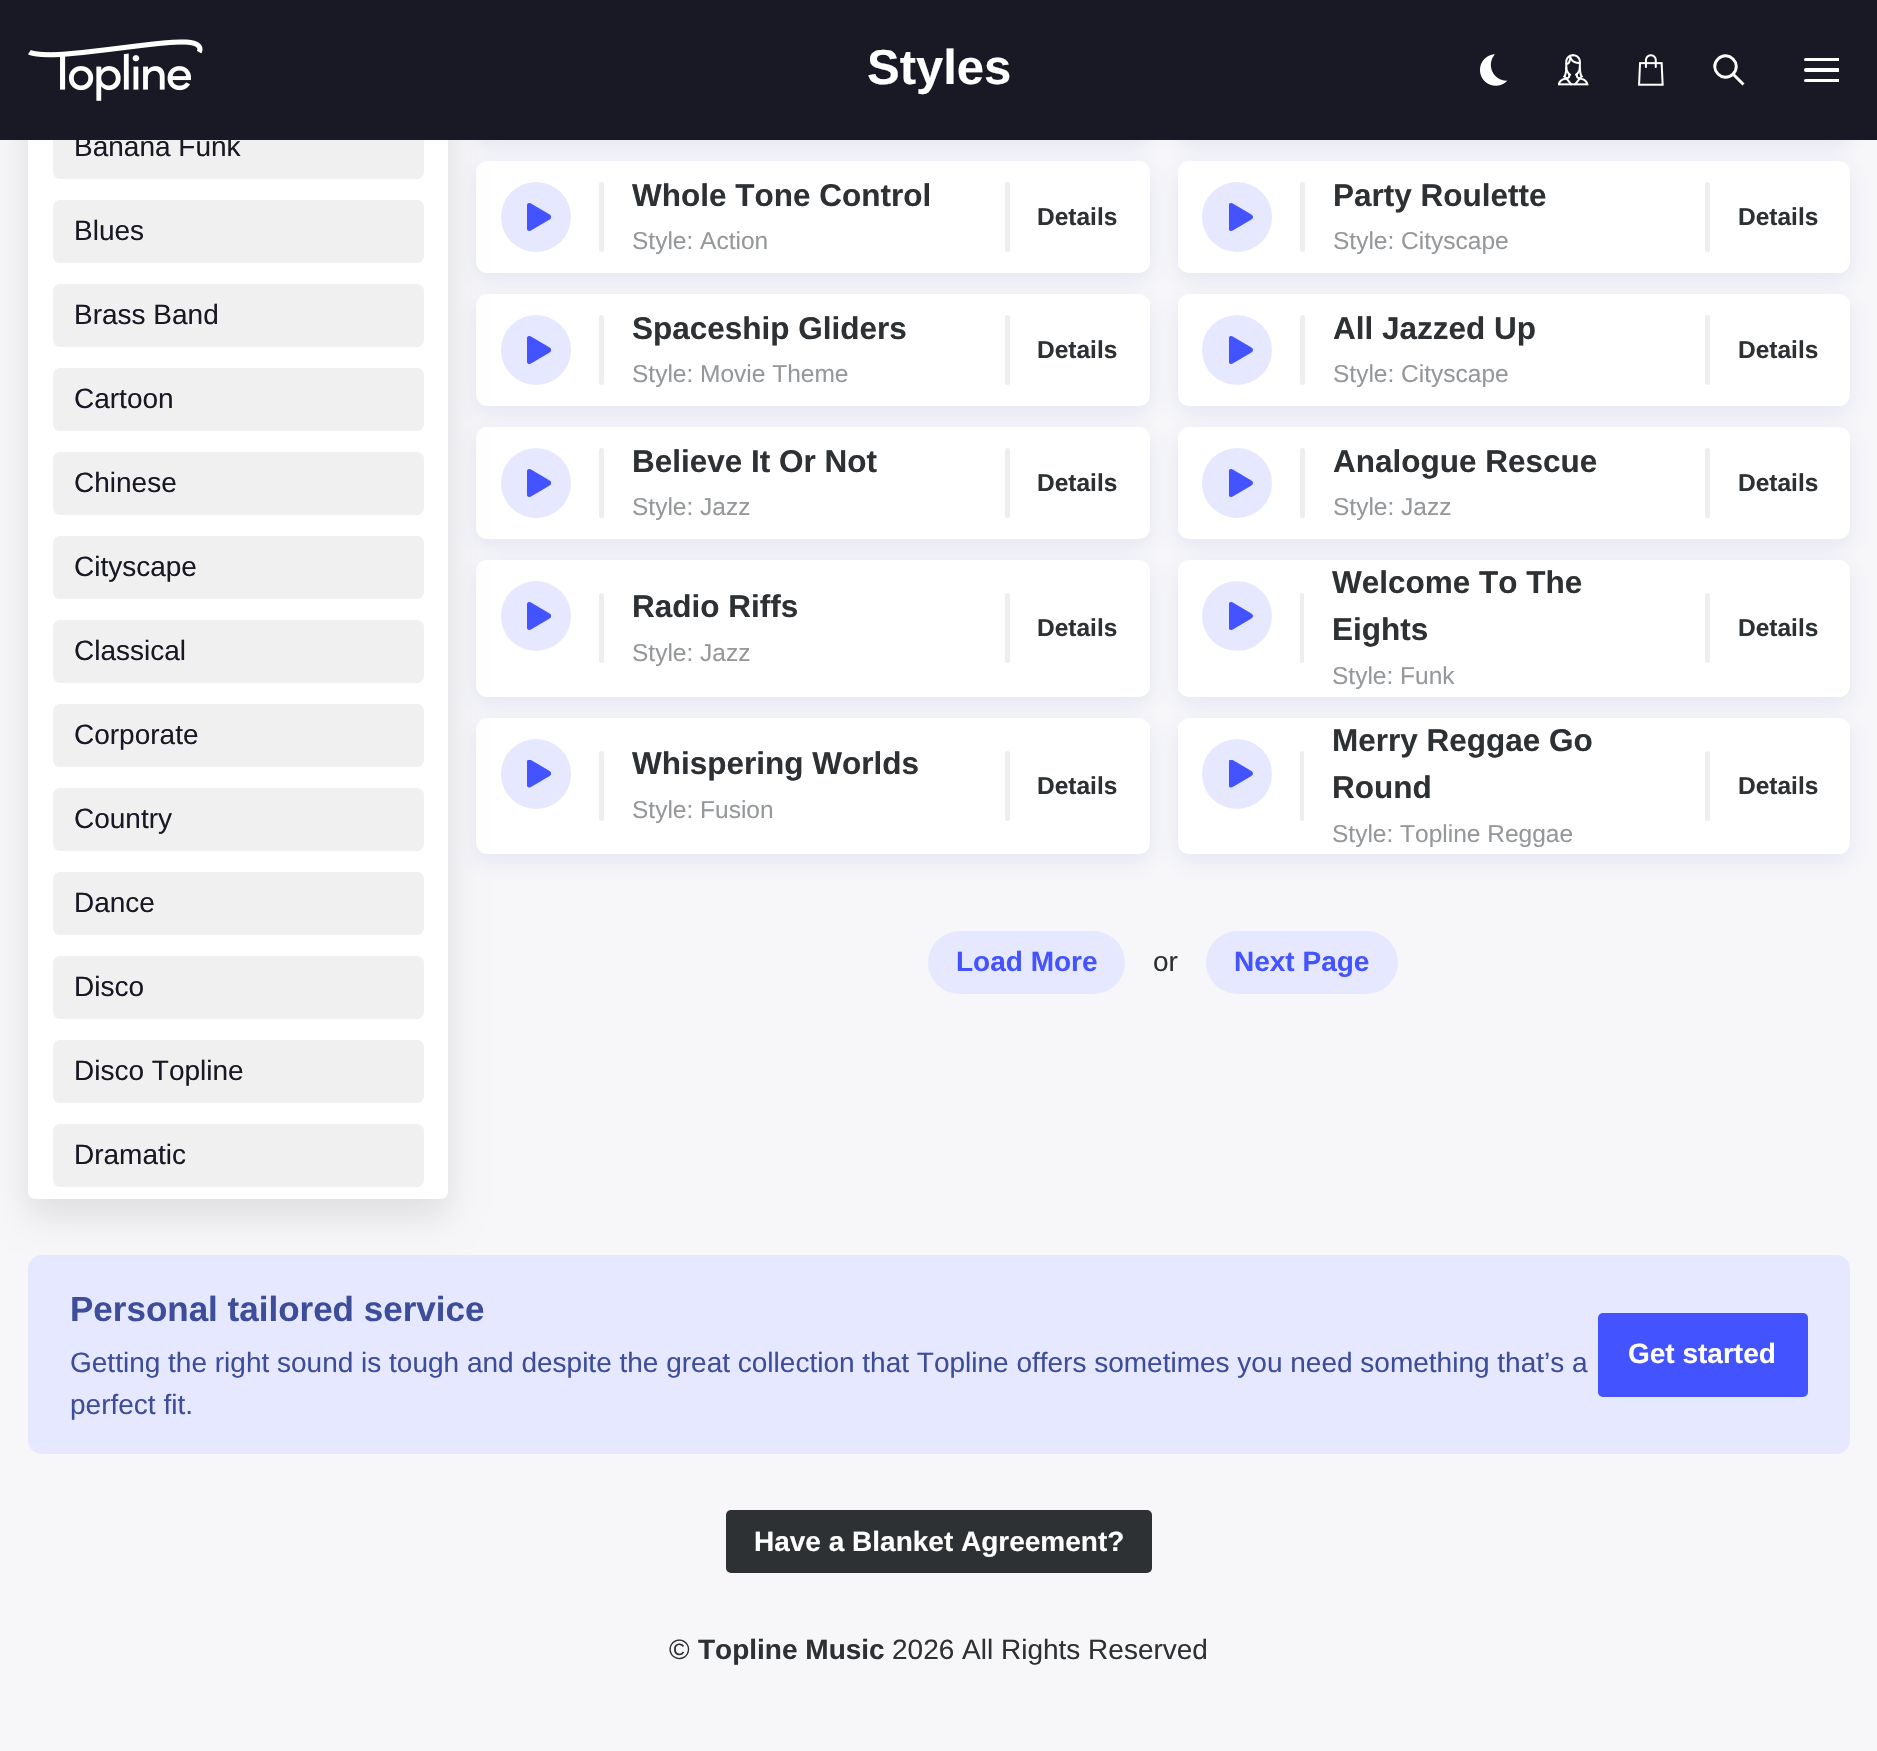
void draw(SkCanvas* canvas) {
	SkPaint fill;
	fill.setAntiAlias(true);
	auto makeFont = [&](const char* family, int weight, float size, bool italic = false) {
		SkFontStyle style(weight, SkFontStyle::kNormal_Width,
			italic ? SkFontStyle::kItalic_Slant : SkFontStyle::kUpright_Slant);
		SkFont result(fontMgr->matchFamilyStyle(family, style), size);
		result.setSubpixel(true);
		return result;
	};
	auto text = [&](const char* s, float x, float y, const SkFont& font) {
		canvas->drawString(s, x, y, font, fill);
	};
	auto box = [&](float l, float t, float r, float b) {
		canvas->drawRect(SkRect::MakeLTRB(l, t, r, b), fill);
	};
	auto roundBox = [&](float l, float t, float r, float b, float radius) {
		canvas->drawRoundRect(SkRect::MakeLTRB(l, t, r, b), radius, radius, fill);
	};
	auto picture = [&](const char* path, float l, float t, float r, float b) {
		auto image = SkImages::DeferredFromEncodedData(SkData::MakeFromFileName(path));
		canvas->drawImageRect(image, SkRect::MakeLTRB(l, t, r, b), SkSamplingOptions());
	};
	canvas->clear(0xFFF7F7FA);
	fill.setColor(0x1A3D4D99);
	fill.setMaskFilter(SkMaskFilter::MakeBlur(kNormal_SkBlurStyle, 10.5f));
	canvas->drawRoundRect(SkRect::MakeLTRB(476, 35, 1150, 147), 11, 11, fill);
	fill.setMaskFilter(nullptr);
	fill.setMaskFilter(SkMaskFilter::MakeBlur(kNormal_SkBlurStyle, 10.5f));
	canvas->drawRoundRect(SkRect::MakeLTRB(1178, 35, 1850, 147), 11, 11, fill);
	fill.setMaskFilter(nullptr);
	fill.setMaskFilter(SkMaskFilter::MakeBlur(kNormal_SkBlurStyle, 10.5f));
	canvas->drawRoundRect(SkRect::MakeLTRB(476, 168, 1150, 280), 11, 11, fill);
	fill.setMaskFilter(nullptr);
	fill.setColor(0xFFFFFFFF);
	roundBox(476, 161, 1150, 273, 11);
	fill.setColor(0xFFE6E8FF);
	canvas->drawCircle(536, 217, 35, fill);
	fill.setColor(0x1A3D4D99);
	fill.setMaskFilter(SkMaskFilter::MakeBlur(kNormal_SkBlurStyle, 10.5f));
	canvas->drawRoundRect(SkRect::MakeLTRB(1178, 168, 1850, 280), 11, 11, fill);
	fill.setMaskFilter(nullptr);
	fill.setColor(0xFFFFFFFF);
	roundBox(1178, 161, 1850, 273, 11);
	fill.setColor(0x1A3D4D99);
	fill.setMaskFilter(SkMaskFilter::MakeBlur(kNormal_SkBlurStyle, 10.5f));
	canvas->drawRoundRect(SkRect::MakeLTRB(476, 301, 1150, 413), 11, 11, fill);
	fill.setMaskFilter(nullptr);
	fill.setColor(0xFFFFFFFF);
	roundBox(476, 294, 1150, 406, 11);
	fill.setColor(0xFFE6E8FF);
	canvas->drawCircle(536, 350, 35, fill);
	fill.setColor(0x1A3D4D99);
	fill.setMaskFilter(SkMaskFilter::MakeBlur(kNormal_SkBlurStyle, 10.5f));
	canvas->drawRoundRect(SkRect::MakeLTRB(1178, 301, 1850, 413), 11, 11, fill);
	fill.setMaskFilter(nullptr);
	fill.setColor(0xFFFFFFFF);
	roundBox(1178, 294, 1850, 406, 11);
	fill.setColor(0x1A3D4D99);
	fill.setMaskFilter(SkMaskFilter::MakeBlur(kNormal_SkBlurStyle, 10.5f));
	canvas->drawRoundRect(SkRect::MakeLTRB(476, 434, 1150, 546), 11, 11, fill);
	fill.setMaskFilter(nullptr);
	fill.setColor(0xFFFFFFFF);
	roundBox(476, 427, 1150, 539, 11);
	fill.setColor(0xFFE6E8FF);
	canvas->drawCircle(536, 483, 35, fill);
	fill.setColor(0x1A3D4D99);
	fill.setMaskFilter(SkMaskFilter::MakeBlur(kNormal_SkBlurStyle, 10.5f));
	canvas->drawRoundRect(SkRect::MakeLTRB(1178, 434, 1850, 546), 11, 11, fill);
	fill.setMaskFilter(nullptr);
	fill.setColor(0xFFFFFFFF);
	roundBox(1178, 427, 1850, 539, 11);
	fill.setColor(0x1A3D4D99);
	fill.setMaskFilter(SkMaskFilter::MakeBlur(kNormal_SkBlurStyle, 10.5f));
	canvas->drawRoundRect(SkRect::MakeLTRB(476, 567, 1150, 704), 11, 11, fill);
	fill.setMaskFilter(nullptr);
	fill.setColor(0xFFFFFFFF);
	roundBox(476, 560, 1150, 697, 11);
	fill.setColor(0xFFE6E8FF);
	canvas->drawCircle(536, 616, 35, fill);
	fill.setColor(0x1A3D4D99);
	fill.setMaskFilter(SkMaskFilter::MakeBlur(kNormal_SkBlurStyle, 10.5f));
	canvas->drawRoundRect(SkRect::MakeLTRB(1178, 567, 1850, 704), 11, 11, fill);
	fill.setMaskFilter(nullptr);
	fill.setColor(0xFFFFFFFF);
	roundBox(1178, 560, 1850, 697, 11);
	fill.setColor(0x1A3D4D99);
	fill.setMaskFilter(SkMaskFilter::MakeBlur(kNormal_SkBlurStyle, 10.5f));
	canvas->drawRoundRect(SkRect::MakeLTRB(476, 725, 1150, 861), 11, 11, fill);
	fill.setMaskFilter(nullptr);
	fill.setColor(0xFFFFFFFF);
	roundBox(476, 718, 1150, 854, 11);
	fill.setColor(0xFFE6E8FF);
	canvas->drawCircle(536, 774, 35, fill);
	roundBox(28, 1255, 1850, 1454, 14);
	fill.setColor(0x1A000000);
	fill.setMaskFilter(SkMaskFilter::MakeBlur(kNormal_SkBlurStyle, 17.5f));
	canvas->drawRoundRect(SkRect::MakeLTRB(28, -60, 448, 1216), 7, 7, fill);
	fill.setMaskFilter(nullptr);
	fill.setColor(0xFFFFFFFF);
	roundBox(28, -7, 448, 1199, 7);
	fill.setColor(0xFFF0F0F0);
	roundBox(53, 116, 424, 179, 7);
	fill.setColor(0xFF191925);
	box(0, 0, 1877, 140);
	picture("image0.png", 28, 39, 203, 101);
	picture("image1.png", 1480, 54, 1508, 86);
	picture("image2.png", 1558, 54, 1589, 86);
	picture("image3.png", 1638, 54, 1664, 86);
	fill.setStyle(SkPaint::kStroke_Style);
	fill.setStrokeWidth(2.9f);
	fill.setStrokeCap(SkPaint::kRound_Cap);
	fill.setColor(0xFFFFFFFF);
	canvas->drawPath(SkPathBuilder().moveTo(1733, 74).cubicTo(1723, 84, 1708, 69, 1718, 59).cubicTo(1728, 49, 1743, 64, 1733, 74).lineTo(1743.5f, 84.5f).close().detach(), fill);
	canvas->save();
	canvas->clipRect(SkRect::MakeLTRB(1804, 58, 1839, 82));
	fill.setStyle(SkPaint::kFill_Style);
	roundBox(1804, 58, 1840, 61, 1.5f);
	roundBox(1804, 68, 1840, 72, 2);
	roundBox(1804, 79, 1840, 82, 1.5f);
	canvas->restore();
	fill.setColor(0xFFF0F0F0);
	roundBox(53, 200, 424, 263, 7);
	roundBox(53, 284, 424, 347, 7);
	roundBox(53, 368, 424, 431, 7);
	roundBox(53, 452, 424, 515, 7);
	roundBox(53, 536, 424, 599, 7);
	roundBox(53, 620, 424, 683, 7);
	roundBox(53, 704, 424, 767, 7);
	roundBox(53, 788, 424, 851, 7);
	roundBox(53, 872, 424, 935, 7);
	roundBox(53, 956, 424, 1019, 7);
	roundBox(53, 1040, 424, 1103, 7);
	roundBox(53, 1124, 424, 1187, 7);
	picture("image4.png", 527, 203, 551, 231);
	fill.setColor(0xFFEEEEEE);
	roundBox(599, 182, 604, 252, 2.5f);
	roundBox(1005, 182, 1010, 252, 2.5f);
	fill.setColor(0xFFE6E8FF);
	canvas->drawCircle(1237, 217, 35, fill);
	picture("image5.png", 1229, 203, 1253, 231);
	fill.setColor(0xFFEEEEEE);
	roundBox(1300, 182, 1305, 252, 2.5f);
	roundBox(1705, 182, 1710, 252, 2.5f);
	picture("image4.png", 527, 336, 551, 364);
	roundBox(599, 315, 604, 385, 2.5f);
	roundBox(1005, 315, 1010, 385, 2.5f);
	fill.setColor(0xFFE6E8FF);
	canvas->drawCircle(1237, 350, 35, fill);
	picture("image5.png", 1229, 336, 1253, 364);
	fill.setColor(0xFFEEEEEE);
	roundBox(1300, 315, 1305, 385, 2.5f);
	roundBox(1705, 315, 1710, 385, 2.5f);
	picture("image4.png", 527, 469, 551, 497);
	roundBox(599, 448, 604, 518, 2.5f);
	roundBox(1005, 448, 1010, 518, 2.5f);
	fill.setColor(0xFFE6E8FF);
	canvas->drawCircle(1237, 483, 35, fill);
	picture("image5.png", 1229, 469, 1253, 497);
	fill.setColor(0xFFEEEEEE);
	roundBox(1300, 448, 1305, 518, 2.5f);
	roundBox(1705, 448, 1710, 518, 2.5f);
	picture("image4.png", 527, 602, 551, 630);
	roundBox(599, 593, 604, 663, 2.5f);
	roundBox(1005, 593, 1010, 663, 2.5f);
	fill.setColor(0xFFE6E8FF);
	canvas->drawCircle(1237, 616, 35, fill);
	picture("image5.png", 1229, 602, 1253, 630);
	fill.setColor(0xFFEEEEEE);
	roundBox(1300, 593, 1304, 663, 2);
	roundBox(1705, 593, 1710, 663, 2.5f);
	picture("image6.png", 527, 760, 551, 788);
	roundBox(599, 751, 604, 821, 2.5f);
	roundBox(1005, 751, 1010, 821, 2.5f);
	fill.setColor(0x1A3D4D99);
	fill.setMaskFilter(SkMaskFilter::MakeBlur(kNormal_SkBlurStyle, 10.5f));
	canvas->drawRoundRect(SkRect::MakeLTRB(1178, 725, 1850, 861), 11, 11, fill);
	fill.setMaskFilter(nullptr);
	fill.setColor(0xFFFFFFFF);
	roundBox(1178, 718, 1850, 854, 11);
	fill.setColor(0xFFE6E8FF);
	canvas->drawCircle(1237, 774, 35, fill);
	picture("image7.png", 1229, 760, 1253, 788);
	fill.setColor(0xFFEEEEEE);
	roundBox(1300, 751, 1304, 821, 2);
	roundBox(1705, 751, 1710, 821, 2.5f);
	fill.setColor(0xFFE6E8FF);
	roundBox(928, 931, 1125, 994, 31.5f);
	roundBox(1206, 931, 1398, 994, 31.5f);
	fill.setColor(0xFF4353FF);
	roundBox(1598, 1313, 1808, 1397, 5);
	fill.setColor(0xFF2E3133);
	roundBox(726, 1510, 1152, 1573, 5);
	auto font1 = makeFont("Liberation Sans", 700, 49);
	fill.setColor(0xFFFFFFFF);
	text("Styles", 867, 84, font1);
	auto font2 = makeFont("Liberation Sans", 400, 28);
	fill.setColor(0xFF191925);
	text("Banana Funk", 74, 156, font2);
	text("Blues", 74, 240, font2);
	text("Brass Band", 74, 324, font2);
	text("Cartoon", 74, 408, font2);
	text("Chinese", 74, 492, font2);
	text("Cityscape", 74, 576, font2);
	text("Classical", 74, 660, font2);
	text("Corporate", 74, 744, font2);
	text("Country", 74, 828, font2);
	text("Dance", 74, 912, font2);
	text("Disco", 74, 996, font2);
	text("Disco Topline", 74, 1080, font2);
	text("Dramatic", 74, 1164, font2);
	auto font3 = makeFont("Liberation Sans", 700, 31.5f);
	fill.setColor(0xFF2E3133);
	text("Whole Tone Control", 632, 206, font3);
	auto font4 = makeFont("Liberation Sans", 400, 24.5f);
	fill.setColor(0xFF95989A);
	text("Style: Action", 632, 249, font4);
	auto font5 = makeFont("Liberation Sans", 700, 24.5f);
	fill.setColor(0xFF2E3133);
	text("Details", 1037, 225, font5);
	text("Party Roulette", 1333, 206, font3);
	fill.setColor(0xFF95989A);
	text("Style: Cityscape", 1333, 249, font4);
	fill.setColor(0xFF2E3133);
	text("Details", 1738, 225, font5);
	text("Spaceship Gliders", 632, 339, font3);
	fill.setColor(0xFF95989A);
	text("Style: Movie Theme", 632, 382, font4);
	fill.setColor(0xFF2E3133);
	text("Details", 1037, 358, font5);
	text("All Jazzed Up", 1333, 339, font3);
	fill.setColor(0xFF95989A);
	text("Style: Cityscape", 1333, 382, font4);
	fill.setColor(0xFF2E3133);
	text("Details", 1738, 358, font5);
	text("Believe It Or Not", 632, 472, font3);
	fill.setColor(0xFF95989A);
	text("Style: Jazz", 632, 515, font4);
	fill.setColor(0xFF2E3133);
	text("Details", 1037, 491, font5);
	text("Analogue Rescue", 1333, 472, font3);
	fill.setColor(0xFF95989A);
	text("Style: Jazz", 1333, 515, font4);
	fill.setColor(0xFF2E3133);
	text("Details", 1738, 491, font5);
	text("Radio Riffs", 632, 617, font3);
	fill.setColor(0xFF95989A);
	text("Style: Jazz", 632, 661, font4);
	fill.setColor(0xFF2E3133);
	text("Details", 1037, 636, font5);
	text("Welcome To The", 1332, 593, font3);
	text("Eights", 1332, 640, font3);
	fill.setColor(0xFF95989A);
	text("Style: Funk", 1332, 684, font4);
	fill.setColor(0xFF2E3133);
	text("Details", 1738, 636, font5);
	text("Whispering Worlds", 632, 774, font3);
	fill.setColor(0xFF95989A);
	text("Style: Fusion", 632, 818, font4);
	fill.setColor(0xFF2E3133);
	text("Details", 1037, 794, font5);
	text("Merry Reggae Go", 1332, 751, font3);
	text("Round", 1332, 798, font3);
	fill.setColor(0xFF95989A);
	text("Style: Topline Reggae", 1332, 842, font4);
	fill.setColor(0xFF2E3133);
	text("Details", 1738, 794, font5);
	auto font6 = makeFont("Liberation Sans", 700, 28);
	fill.setColor(0xFF4353FF);
	text("Load More", 956, 971, font6);
	fill.setColor(0xFF2E3133);
	text("or", 1153, 971, font2);
	fill.setColor(0xFF4353FF);
	text("Next Page", 1234, 971, font6);
	auto font7 = makeFont("Liberation Sans", 700, 35);
	fill.setColor(0xFF3D4D99);
	text("Personal tailored service", 70, 1321, font7);
	text("Getting the right sound is tough and despite the great collection that Topline offers sometimes you need something that’s a", 70, 1372, font2);
	text("perfect fit.", 70, 1414, font2);
	fill.setColor(0xFFFFFFFF);
	text("Get started", 1628, 1363, font6);
	text("Have a Blanket Agreement?", 754, 1551, font6);
	fill.setColor(0xFF2E3133);
	text("©", 669, 1659, font2);
	text("Topline Music", 698, 1659, font6);
	text("2026 All Rights Reserved", 892, 1659, font2);
}
